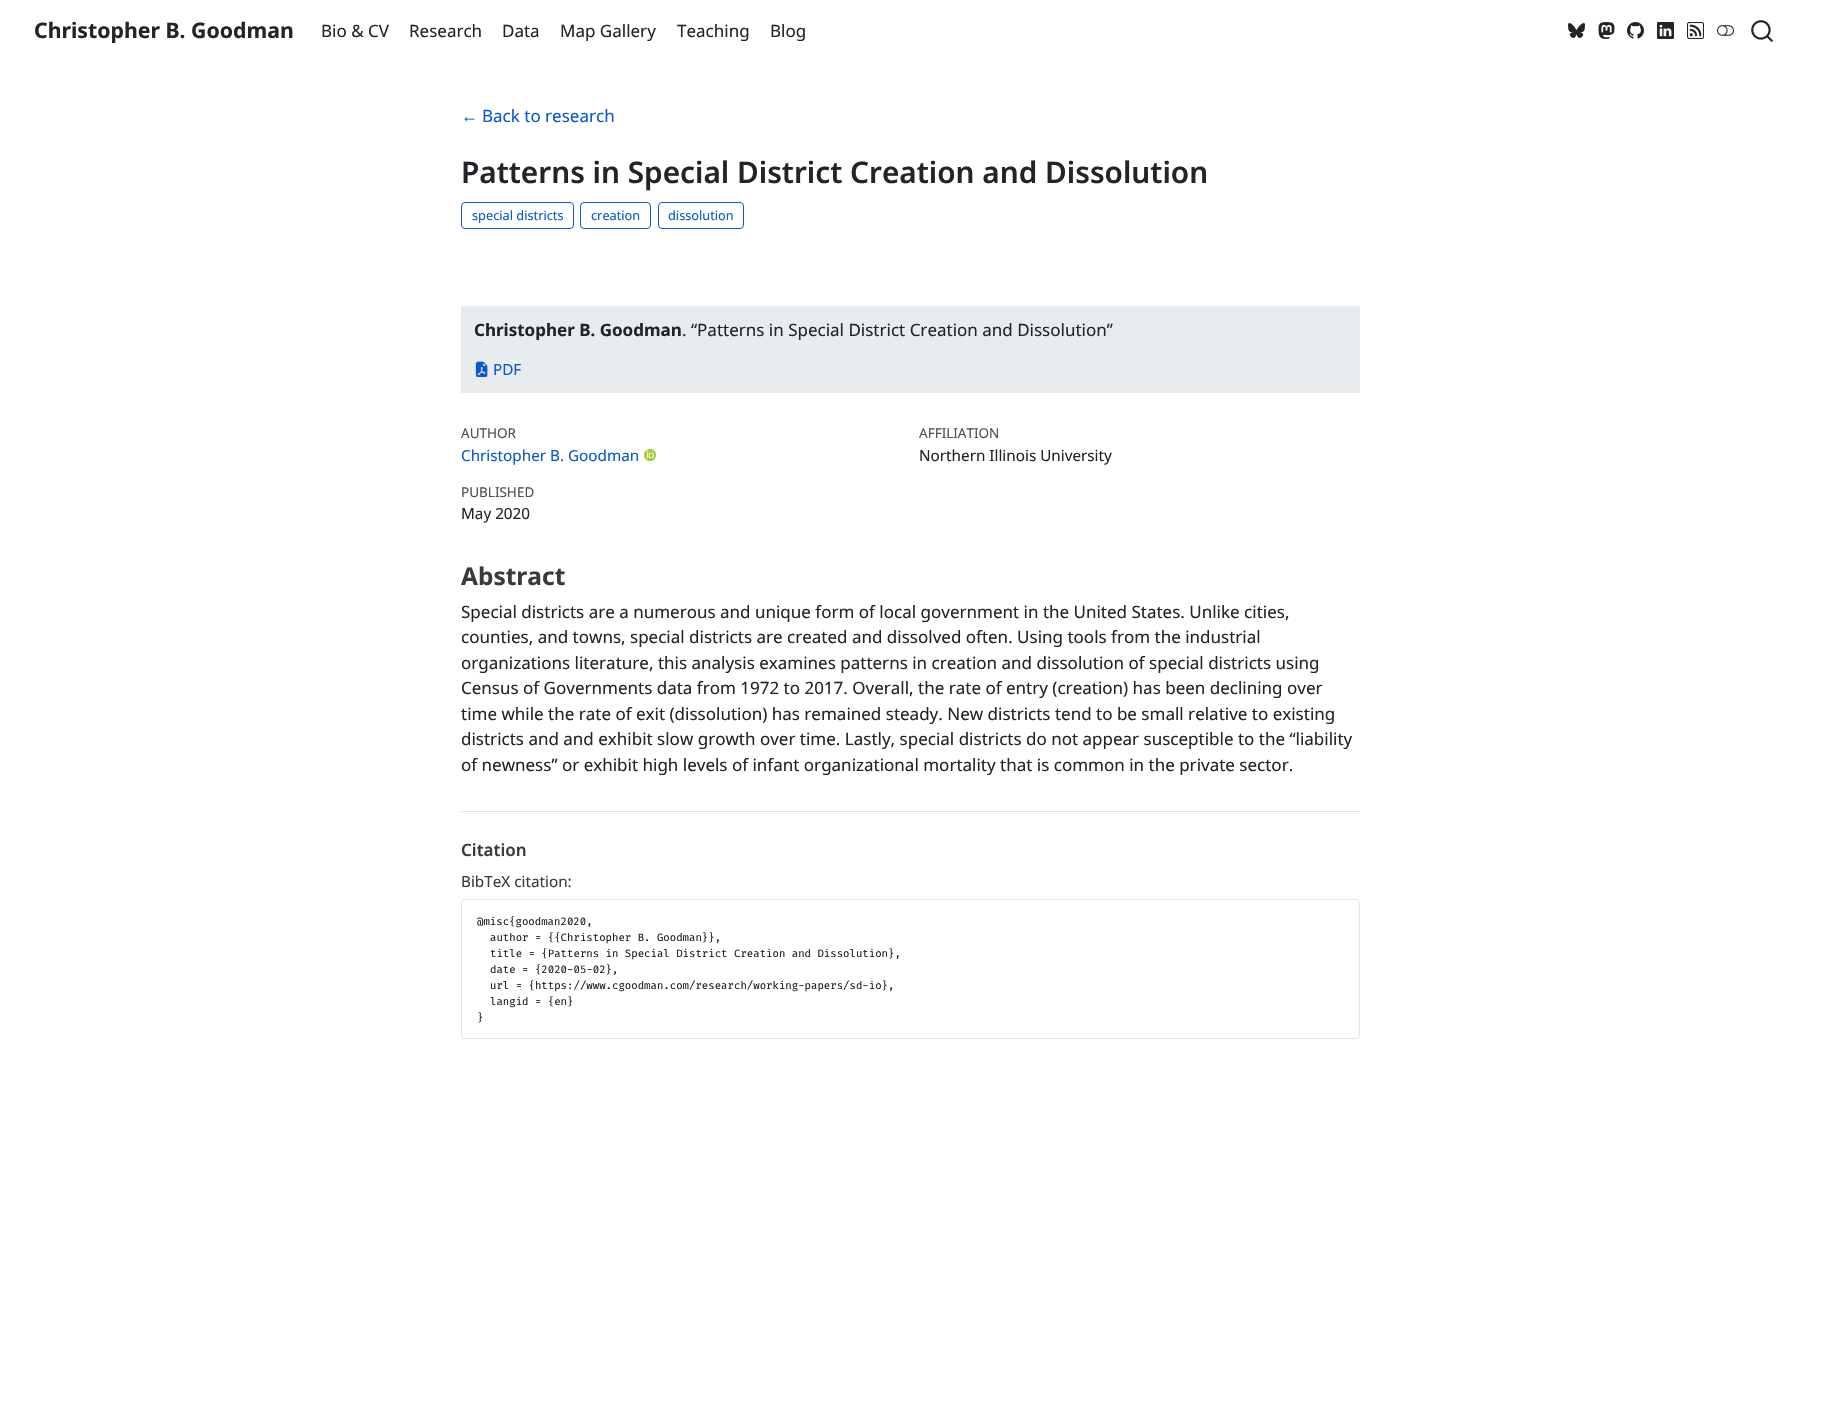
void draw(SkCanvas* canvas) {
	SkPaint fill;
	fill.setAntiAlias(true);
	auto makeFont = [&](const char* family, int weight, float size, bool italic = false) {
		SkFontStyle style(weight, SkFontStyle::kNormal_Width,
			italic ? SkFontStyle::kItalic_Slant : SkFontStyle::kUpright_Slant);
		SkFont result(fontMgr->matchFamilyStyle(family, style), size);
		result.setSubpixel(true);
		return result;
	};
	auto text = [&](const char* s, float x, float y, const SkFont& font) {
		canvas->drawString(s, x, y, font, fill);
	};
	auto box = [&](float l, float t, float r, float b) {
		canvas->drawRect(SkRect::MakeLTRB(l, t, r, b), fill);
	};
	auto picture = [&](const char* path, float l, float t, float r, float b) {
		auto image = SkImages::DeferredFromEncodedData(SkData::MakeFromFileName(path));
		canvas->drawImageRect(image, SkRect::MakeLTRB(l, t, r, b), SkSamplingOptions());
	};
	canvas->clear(0xFFFFFFFF);
	picture("image0.png", 1568, 23, 1585, 38);
	picture("image1.png", 1598, 22, 1615, 39);
	picture("image2.png", 1627, 22, 1644, 39);
	picture("image3.png", 1657, 22, 1674, 39);
	picture("image4.png", 1687, 22, 1704, 39);
	picture("image5.png", 1717, 25, 1734, 36);
	picture("image6.png", 1751, 20, 1773, 42);
	fill.setStyle(SkPaint::kStroke_Style);
	fill.setStrokeWidth(1);
	fill.setColor(0xFF0A58CA);
	canvas->drawRoundRect(SkRect::MakeLTRB(461.5f, 202.5f, 573.5f, 228.5f), 3.5f, 3.5f, fill);
	canvas->drawRoundRect(SkRect::MakeLTRB(580.5f, 202.5f, 650.5f, 228.5f), 3.5f, 3.5f, fill);
	canvas->drawRoundRect(SkRect::MakeLTRB(658.5f, 202.5f, 743.5f, 228.5f), 3.5f, 3.5f, fill);
	fill.setStyle(SkPaint::kFill_Style);
	fill.setColor(0xFFE9ECEF);
	box(461, 306, 1360, 393);
	picture("image7.png", 475, 361, 488, 377);
	picture("image8.png", 644, 449, 656, 461);
	fill.setColor(0xFFDEE2E6);
	box(461, 811, 1360, 812);
	fill.setStyle(SkPaint::kStroke_Style);
	fill.setColor(0xFFE1E5E9);
	canvas->drawRoundRect(SkRect::MakeLTRB(461.5f, 899.5f, 1359.5f, 1038.5f), 3.5f, 3.5f, fill);
	auto font1 = makeFont("Noto Sans", 700, 21.25f);
	fill.setStyle(SkPaint::kFill_Style);
	fill.setColor(0xFF212529);
	text("Christopher B. Goodman", 34, 38, font1);
	auto font2 = makeFont("Noto Sans", 400, 17);
	text("Bio & CV", 321, 37, font2);
	text("Research", 409, 37, font2);
	text("Data", 502, 37, font2);
	text("Map Gallery", 560, 37, font2);
	text("Teaching", 677, 37, font2);
	text("Blog", 770, 37, font2);
	auto font3 = makeFont("Liberation Sans", 400, 17);
	fill.setColor(0xFF0A58CA);
	text("←", 461, 122, font3);
	text("Back to research", 482, 122, font2);
	auto font4 = makeFont("Noto Sans", 600, 29.75f);
	fill.setColor(0xFF212529);
	text("Patterns in Special District Creation and Dissolution", 461, 183, font4);
	auto font5 = makeFont("Noto Sans", 400, 12.75f);
	fill.setColor(0xFF0A58CA);
	text("special districts", 472, 220, font5);
	text("creation", 591, 220, font5);
	text("dissolution", 668, 220, font5);
	auto font6 = makeFont("Noto Sans", 700, 17);
	fill.setColor(0xFF212529);
	text("Christopher B. Goodman", 474, 336, font6);
	text(". “Patterns in Special District Creation and Dissolution”", 682, 336, font2);
	auto font7 = makeFont("Noto Sans", 400, 15.25f);
	fill.setColor(0xFF0A58CA);
	text("PDF", 493, 375, font7);
	auto font8 = makeFont("Noto Sans", 400, 13.5f);
	fill.setColor(0xFF4D5154);
	text("AUTHOR", 461, 438, font8);
	text("AFFILIATION", 919, 438, font8);
	fill.setColor(0xFF0A58CA);
	text("Christopher B. Goodman", 461, 461, font7);
	fill.setColor(0xFF212529);
	text("Northern Illinois University", 919, 461, font7);
	fill.setColor(0xFF4D5154);
	text("PUBLISHED", 461, 497, font8);
	fill.setColor(0xFF212529);
	text("May 2020", 461, 519, font7);
	auto font9 = makeFont("Noto Sans", 700, 24.5f);
	fill.setColor(0xFF373B3E);
	text("Abstract", 461, 585, font9);
	fill.setColor(0xFF212529);
	text("Special districts are a numerous and unique form of local government in the United States. Unlike cities,", 461, 618, font2);
	text("counties, and towns, special districts are created and dissolved often. Using tools from the industrial", 461, 643, font2);
	text("organizations literature, this analysis examines patterns in creation and dissolution of special districts using", 461, 669, font2);
	text("Census of Governments data from 1972 to 2017. Overall, the rate of entry (creation) has been declining over", 461, 694, font2);
	text("time while the rate of exit (dissolution) has remained steady. New districts tend to be small relative to existing", 461, 720, font2);
	text("districts and and exhibit slow growth over time. Lastly, special districts do not appear susceptible to the “liability", 461, 745, font2);
	text("of newness” or exhibit high levels of infant organizational mortality that is common in the private sector.", 461, 771, font2);
	auto font10 = makeFont("Noto Sans", 600, 17);
	fill.setColor(0xFF373B3E);
	text("Citation", 461, 856, font10);
	text("BibTeX citation:", 461, 887, font7);
	auto font11 = makeFont("Fira Code", 300, 10.7f);
	fill.setColor(0xFF1A1A1A);
	text("@misc{goodman2020,", 477, 925, font11);
	text("author = {{Christopher B. Goodman}},", 490, 941, font11);
	text("title = {Patterns in Special District Creation and Dissolution},", 490, 957, font11);
	text("date = {2020-05-02},", 490, 973, font11);
	text("url = {https://www.cgoodman.com/research/working-papers/sd-io},", 490, 989, font11);
	text("langid = {en}", 490, 1005, font11);
	text("}", 477, 1021, font11);
}
